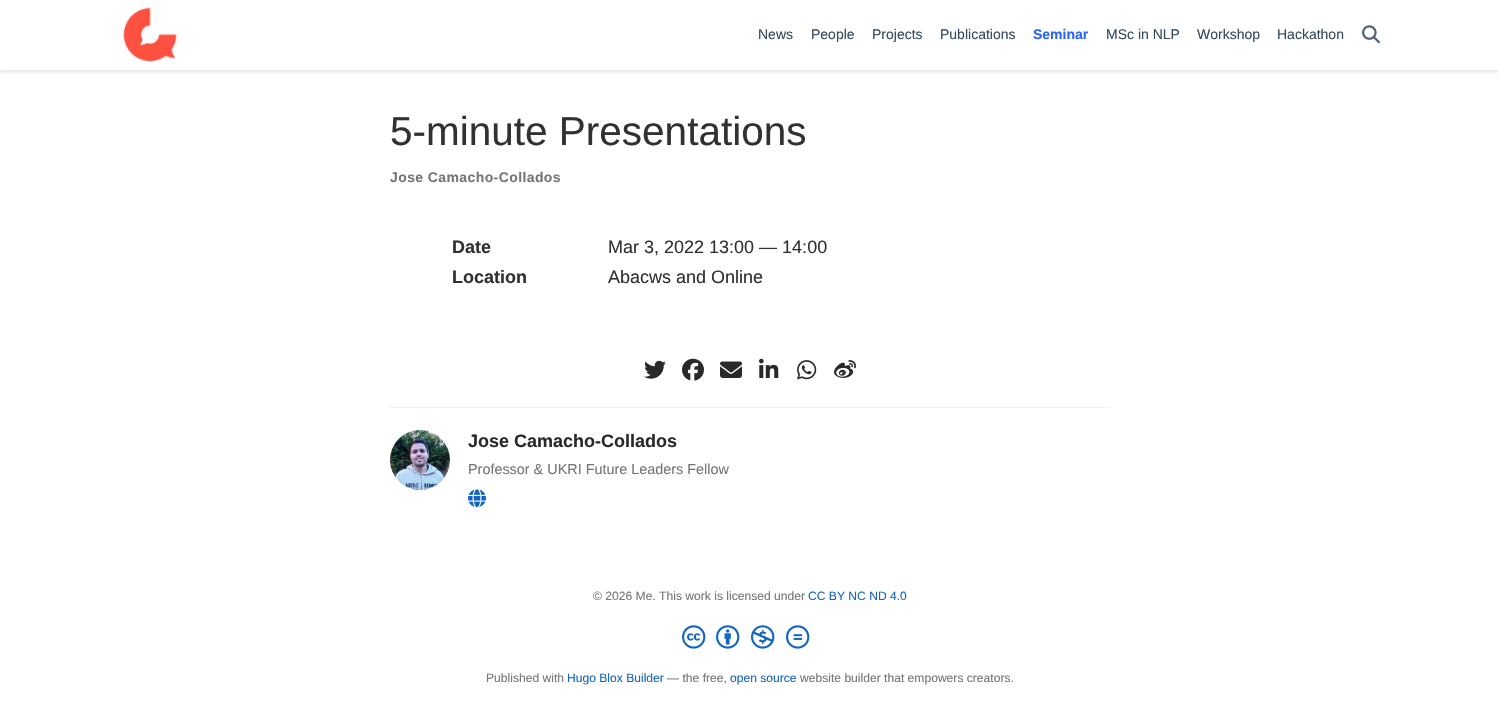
void draw(SkCanvas* canvas) {
	SkPaint fill;
	fill.setAntiAlias(true);
	auto makeFont = [&](const char* family, int weight, float size, bool italic = false) {
		SkFontStyle style(weight, SkFontStyle::kNormal_Width,
			italic ? SkFontStyle::kItalic_Slant : SkFontStyle::kUpright_Slant);
		SkFont result(fontMgr->matchFamilyStyle(family, style), size);
		result.setSubpixel(true);
		return result;
	};
	auto text = [&](const char* s, float x, float y, const SkFont& font) {
		canvas->drawString(s, x, y, font, fill);
	};
	auto spacedText = [&](const char* s, float x, float y, const SkFont& font, const SkPaint& ink, float letter, float word) {
		std::vector<SkGlyphID> glyphs(font.countText(s, strlen(s), SkTextEncoding::kUTF8));
		std::vector<float> xs(glyphs.size());
		font.textToGlyphs(s, strlen(s), SkTextEncoding::kUTF8, glyphs);
		font.getXPos(glyphs, xs, x);
		float extra = 0;
		for (size_t i = 0; i < glyphs.size(); i++) {
			xs[i] += extra;
			extra += letter + word * (glyphs[i] == font.unicharToGlyph(' '));
		}
		canvas->drawTextBlob(SkTextBlob::MakeFromPosHGlyphs(glyphs, xs, y, font), 0, 0, ink);
	};
	auto box = [&](float l, float t, float r, float b) {
		canvas->drawRect(SkRect::MakeLTRB(l, t, r, b), fill);
	};
	auto picture = [&](const char* path, float l, float t, float r, float b) {
		auto image = SkImages::DeferredFromEncodedData(SkData::MakeFromFileName(path));
		canvas->drawImageRect(image, SkRect::MakeLTRB(l, t, r, b), SkSamplingOptions());
	};
	canvas->clear(0xFFFFFFFF);
	canvas->save();
	canvas->clipRect(SkRect::MakeLTRB(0, 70, 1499, 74));
	fill.setColor(0x1C000000);
	fill.setMaskFilter(SkMaskFilter::MakeBlur(kNormal_SkBlurStyle, 2));
	canvas->drawRect(SkRect::MakeLTRB(0, 2, 1499, 72), fill);
	fill.setMaskFilter(nullptr);
	canvas->restore();
	picture("image0.png", 123, 7, 178, 62);
	picture("image1.png", 1362, 25, 1380, 44);
	picture("image2.png", 644, 360, 666, 379);
	picture("image3.png", 682, 358, 704, 381);
	picture("image4.png", 720, 361, 742, 378);
	picture("image5.png", 759, 358, 779, 378);
	picture("image6.png", 797, 360, 817, 380);
	picture("image7.png", 834, 360, 856, 378);
	fill.setColor(0xFFF2F2F2);
	box(390, 407, 1110, 408);
	picture("image8.png", 390, 430, 450, 490);
	picture("image9.png", 468, 489, 486, 508);
	picture("image10.png", 682, 625, 706, 649);
	picture("image11.png", 716, 625, 740, 649);
	picture("image12.png", 751, 625, 775, 649);
	picture("image13.png", 786, 625, 810, 649);
	auto font1 = makeFont("Liberation Sans", 400, 14);
	fill.setColor(0xFF34495E);
	text("News", 758, 39, font1);
	text("People", 811, 39, font1);
	text("Projects", 872, 39, font1);
	text("Publications", 940, 39, font1);
	auto font2 = makeFont("Liberation Sans", 700, 14);
	fill.setColor(0xFF2962FF);
	text("Seminar", 1033, 39, font2);
	fill.setColor(0xFF34495E);
	text("MSc in NLP", 1106, 39, font1);
	text("Workshop", 1197, 39, font1);
	text("Hackathon", 1277, 39, font1);
	auto font3 = makeFont("Liberation Sans", 400, 40.5f);
	fill.setColor(0xFF313131);
	text("5-minute Presentations", 390, 145, font3);
	fill.setColor(0xFF757575);
	spacedText("Jose Camacho-Collados", 390, 182, font2, fill, 0.4f, 0);
	auto font4 = makeFont("Liberation Sans", 700, 18);
	fill.setColor(0xFF313131);
	text("Date", 452, 253, font4);
	auto font5 = makeFont("Liberation Sans", 400, 18);
	text("Mar 3, 2022 13:00 — 14:00", 608, 253, font5);
	text("Location", 452, 283, font4);
	text("Abacws and Online", 608, 283, font5);
	fill.setColor(0xFF292929);
	text("Jose Camacho-Collados", 468, 447, font4);
	auto font6 = makeFont("Liberation Sans", 400, 14.4f);
	fill.setColor(0xFF757575);
	text("Professor & UKRI Future Leaders Fellow", 468, 474, font6);
	auto font7 = makeFont("Liberation Sans", 400, 12.1f);
	text("© 2026 Me. This work is licensed under", 593, 600, font7);
	fill.setColor(0xFF1565C0);
	text("CC BY NC ND 4.0", 808, 600, font7);
	fill.setColor(0xFF757575);
	text("Published with", 486, 682, font7);
	fill.setColor(0xFF1565C0);
	text("Hugo Blox Builder", 567, 682, font7);
	fill.setColor(0xFF757575);
	text("— the free,", 667, 682, font7);
	fill.setColor(0xFF1565C0);
	text("open source", 730, 682, font7);
	fill.setColor(0xFF757575);
	text("website builder that empowers creators.", 800, 682, font7);
}
